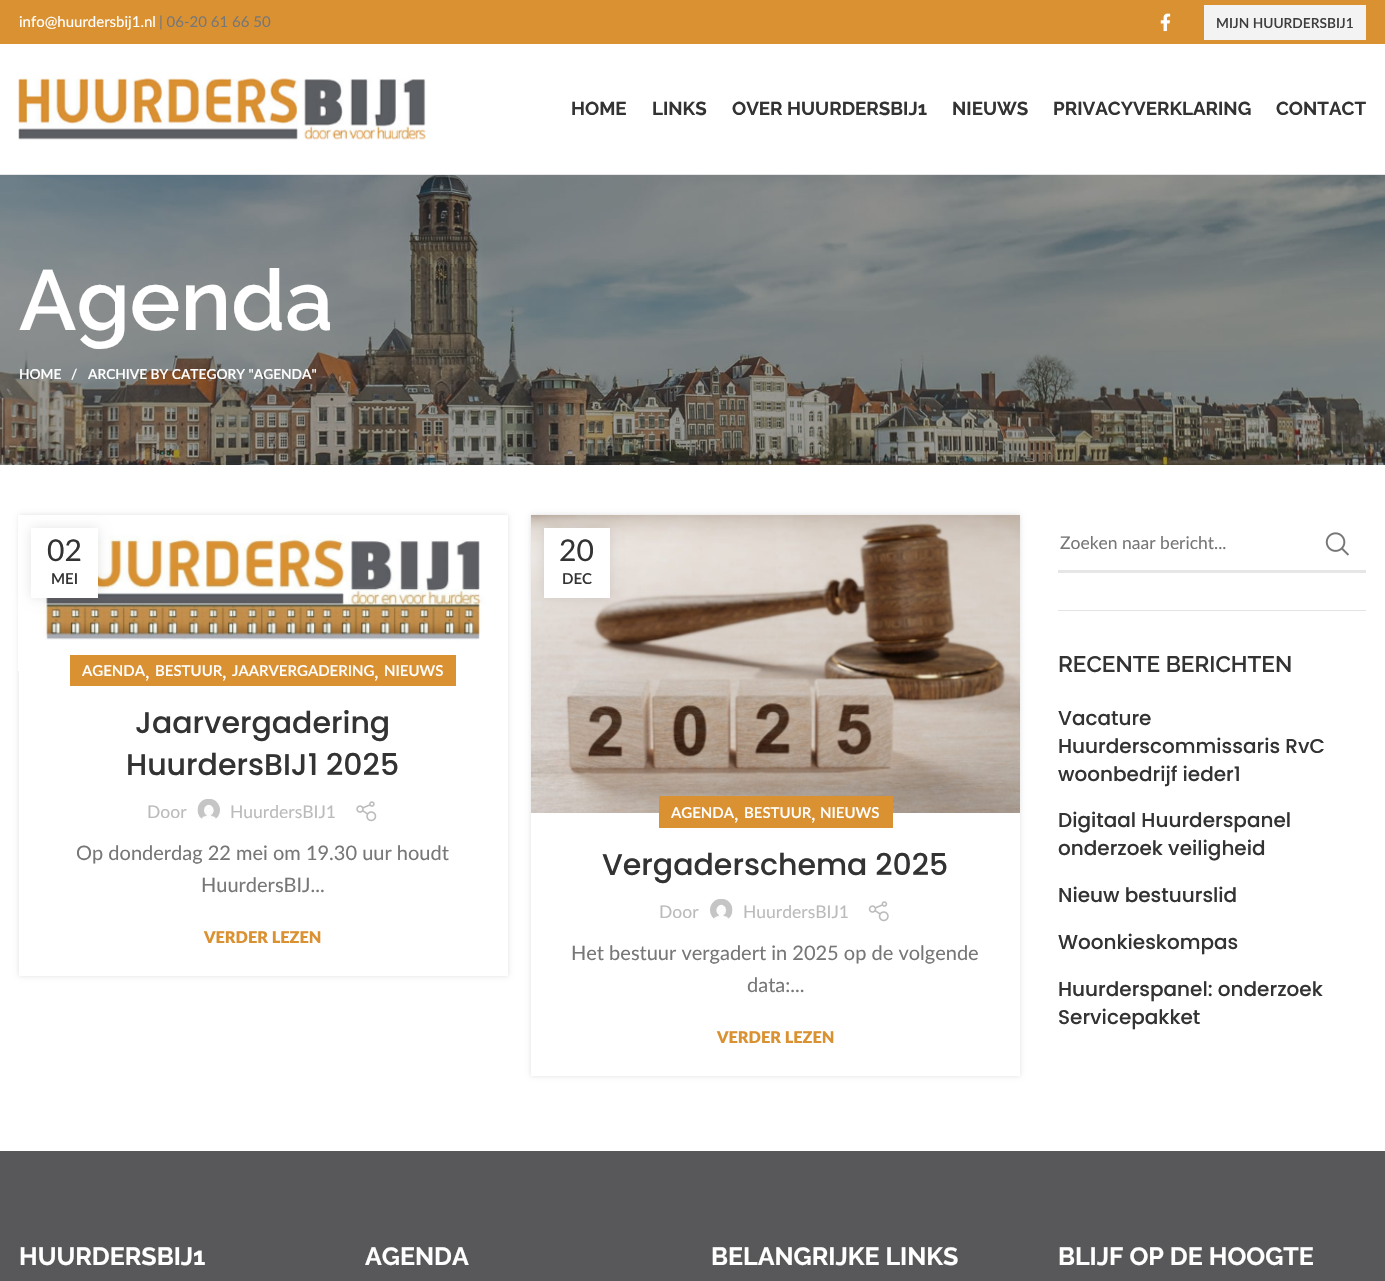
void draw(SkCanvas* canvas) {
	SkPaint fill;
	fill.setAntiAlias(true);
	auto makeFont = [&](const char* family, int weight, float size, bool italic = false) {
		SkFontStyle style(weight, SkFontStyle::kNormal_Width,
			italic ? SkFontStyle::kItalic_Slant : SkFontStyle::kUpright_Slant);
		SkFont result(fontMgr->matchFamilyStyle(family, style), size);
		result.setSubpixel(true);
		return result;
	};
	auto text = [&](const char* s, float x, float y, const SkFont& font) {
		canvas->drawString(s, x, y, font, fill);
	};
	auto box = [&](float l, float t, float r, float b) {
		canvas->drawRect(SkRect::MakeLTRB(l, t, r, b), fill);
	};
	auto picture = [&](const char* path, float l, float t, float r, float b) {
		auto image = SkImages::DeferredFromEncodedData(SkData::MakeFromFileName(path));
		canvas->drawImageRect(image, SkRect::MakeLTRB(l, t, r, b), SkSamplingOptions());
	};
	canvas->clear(0xFFFFFFFF);
	fill.setColor(0xFFDA9132);
	box(0, 0, 1385, 44);
	picture("image0.png", 1160, 13, 1171, 32);
	fill.setColor(0xFFF3F3F3);
	box(1204, 5, 1366, 40);
	fill.setColor(0xFFE6E6E6);
	box(0, 174, 1385, 175);
	picture("image1.png", 18, 78, 426, 140);
	picture("image2.png", 0, 175, 1385, 465);
	fill.setColor(0x1F000000);
	fill.setMaskFilter(SkMaskFilter::MakeBlur(kNormal_SkBlurStyle, 2.5f));
	canvas->drawRect(SkRect::MakeLTRB(19, 515, 508, 976), fill);
	fill.setMaskFilter(nullptr);
	picture("image3.png", 18, 515, 508, 671);
	fill.setColor(0x1A000000);
	fill.setMaskFilter(SkMaskFilter::MakeBlur(kNormal_SkBlurStyle, 5.5f));
	canvas->drawRect(SkRect::MakeLTRB(31, 528, 98, 598), fill);
	fill.setMaskFilter(nullptr);
	fill.setColor(0xFFFFFFFF);
	box(31, 528, 98, 598);
	box(19, 671, 508, 976);
	fill.setColor(0xFFDA9132);
	box(70, 655, 456, 686);
	picture("image4.png", 197, 799, 220, 819);
	picture("image5.png", 356, 801, 377, 822);
	fill.setColor(0x1F000000);
	fill.setMaskFilter(SkMaskFilter::MakeBlur(kNormal_SkBlurStyle, 2.5f));
	canvas->drawRect(SkRect::MakeLTRB(531, 515, 1020, 1076), fill);
	fill.setMaskFilter(nullptr);
	picture("image6.png", 531, 515, 1020, 813);
	fill.setColor(0x1A000000);
	fill.setMaskFilter(SkMaskFilter::MakeBlur(kNormal_SkBlurStyle, 5.5f));
	canvas->drawRect(SkRect::MakeLTRB(544, 528, 610, 598), fill);
	fill.setMaskFilter(nullptr);
	fill.setColor(0xFFFFFFFF);
	box(544, 528, 610, 598);
	box(531, 813, 1020, 1076);
	fill.setColor(0xFFDA9132);
	box(659, 796, 893, 828);
	picture("image7.png", 710, 899, 733, 920);
	picture("image8.png", 868, 901, 889, 922);
	fill.setColor(0xFFE4E4E4);
	box(1058, 610, 1366, 611);
	fill.setColor(0xFFE6E6E6);
	box(1058, 570, 1366, 573);
	picture("image9.png", 1325, 532, 1349, 556);
	fill.setColor(0xFF58585A);
	box(0, 1151, 1385, 1281);
	auto font1 = makeFont("Lato", 400, 15);
	fill.setColor(0xFFFFFFFF);
	text("info@huurdersbij1.nl", 19, 27, font1);
	fill.setColor(0xFF777777);
	text("| 06-20 61 66 50", 159, 27, font1);
	auto font2 = makeFont("Lato", 600, 13.75f);
	fill.setColor(0xFF3E3E3E);
	text("MIJN HUURDERSBIJ1", 1216, 28, font2);
	auto font3 = makeFont("Raleway", 700, 18.75f);
	fill.setColor(0xFF333333);
	text("HOME", 571, 115, font3);
	text("LINKS", 652, 115, font3);
	text("OVER HUURDERSBIJ1", 732, 115, font3);
	text("NIEUWS", 952, 115, font3);
	text("PRIVACYVERKLARING", 1053, 115, font3);
	text("CONTACT", 1276, 115, font3);
	auto font4 = makeFont("Raleway", 600, 85);
	fill.setColor(0xFFFFFFFF);
	text("Agenda", 19, 330, font4);
	text("HOME", 19, 379, font2);
	text("/", 71, 379, font2);
	text("ARCHIVE BY CATEGORY \"AGENDA\"", 88, 379, font2);
	auto font5 = makeFont("Lato", 400, 30);
	fill.setColor(0xFF333333);
	text("02", 47, 561, font5);
	auto font6 = makeFont("Lato", 600, 15);
	text("MEI", 51, 584, font6);
	fill.setColor(0xFFFFFFFF);
	text("AGENDA", 82, 676, font6);
	text("BESTUUR", 155, 676, font6);
	text("JAARVERGADERING", 232, 676, font6);
	text("NIEUWS", 384, 676, font6);
	auto font7 = makeFont("Lato", 400, 20);
	text(",", 145, 678, font7);
	text(",", 222, 678, font7);
	text(",", 374, 678, font7);
	auto font8 = makeFont("Poppins", 500, 30);
	fill.setColor(0xFF333333);
	text("Jaarvergadering", 135, 733, font8);
	text("HuurdersBIJ1 2025", 126, 775, font8);
	auto font9 = makeFont("Lato", 400, 17.5f);
	fill.setColor(0xFFBBBBBB);
	text("Door", 147, 818, font9);
	text("HuurdersBIJ1", 230, 818, font9);
	fill.setColor(0xFF777777);
	text("Op donderdag 22 mei om 19.30 uur houdt", 76, 860, font7);
	text("HuurdersBIJ...", 201, 892, font7);
	auto font10 = makeFont("Lato", 800, 16.25f);
	fill.setColor(0xFFDA9132);
	text("VERDER LEZEN", 204, 943, font10);
	fill.setColor(0xFF333333);
	text("20", 559, 561, font5);
	text("DEC", 562, 584, font6);
	fill.setColor(0xFFFFFFFF);
	text("AGENDA", 671, 818, font6);
	text("BESTUUR", 744, 818, font6);
	text("NIEUWS", 820, 818, font6);
	text(",", 734, 820, font7);
	text(",", 811, 820, font7);
	fill.setColor(0xFF333333);
	text("Vergaderschema 2025", 602, 875, font8);
	fill.setColor(0xFFBBBBBB);
	text("Door", 659, 918, font9);
	text("HuurdersBIJ1", 743, 918, font9);
	fill.setColor(0xFF777777);
	text("Het bestuur vergadert in 2025 op de volgende", 571, 960, font7);
	text("data:...", 747, 992, font7);
	fill.setColor(0xFFDA9132);
	text("VERDER LEZEN", 717, 1043, font10);
	fill.setColor(0xFF777777);
	text("Zoeken naar bericht...", 1060, 549, font9);
	auto font11 = makeFont("Raleway", 600, 22.5f);
	fill.setColor(0xFF333333);
	text("RECENTE BERICHTEN", 1058, 672, font11);
	auto font12 = makeFont("Poppins", 500, 20);
	text("Vacature", 1058, 725, font12);
	text("Huurderscommissaris RvC", 1058, 753, font12);
	text("woonbedrijf ieder1", 1058, 781, font12);
	text("Digitaal Huurderspanel", 1058, 827, font12);
	text("onderzoek veiligheid", 1058, 855, font12);
	text("Nieuw bestuurslid", 1058, 902, font12);
	text("Woonkieskompas", 1058, 949, font12);
	text("Huurderspanel: onderzoek", 1058, 996, font12);
	text("Servicepakket", 1058, 1024, font12);
	auto font13 = makeFont("Raleway", 700, 25);
	fill.setColor(0xFFFFFFFF);
	text("HUURDERSBIJ1", 19, 1265, font13);
	text("AGENDA", 365, 1265, font13);
	text("BELANGRIJKE LINKS", 711, 1265, font13);
	text("BLIJF OP DE HOOGTE", 1058, 1265, font13);
}
